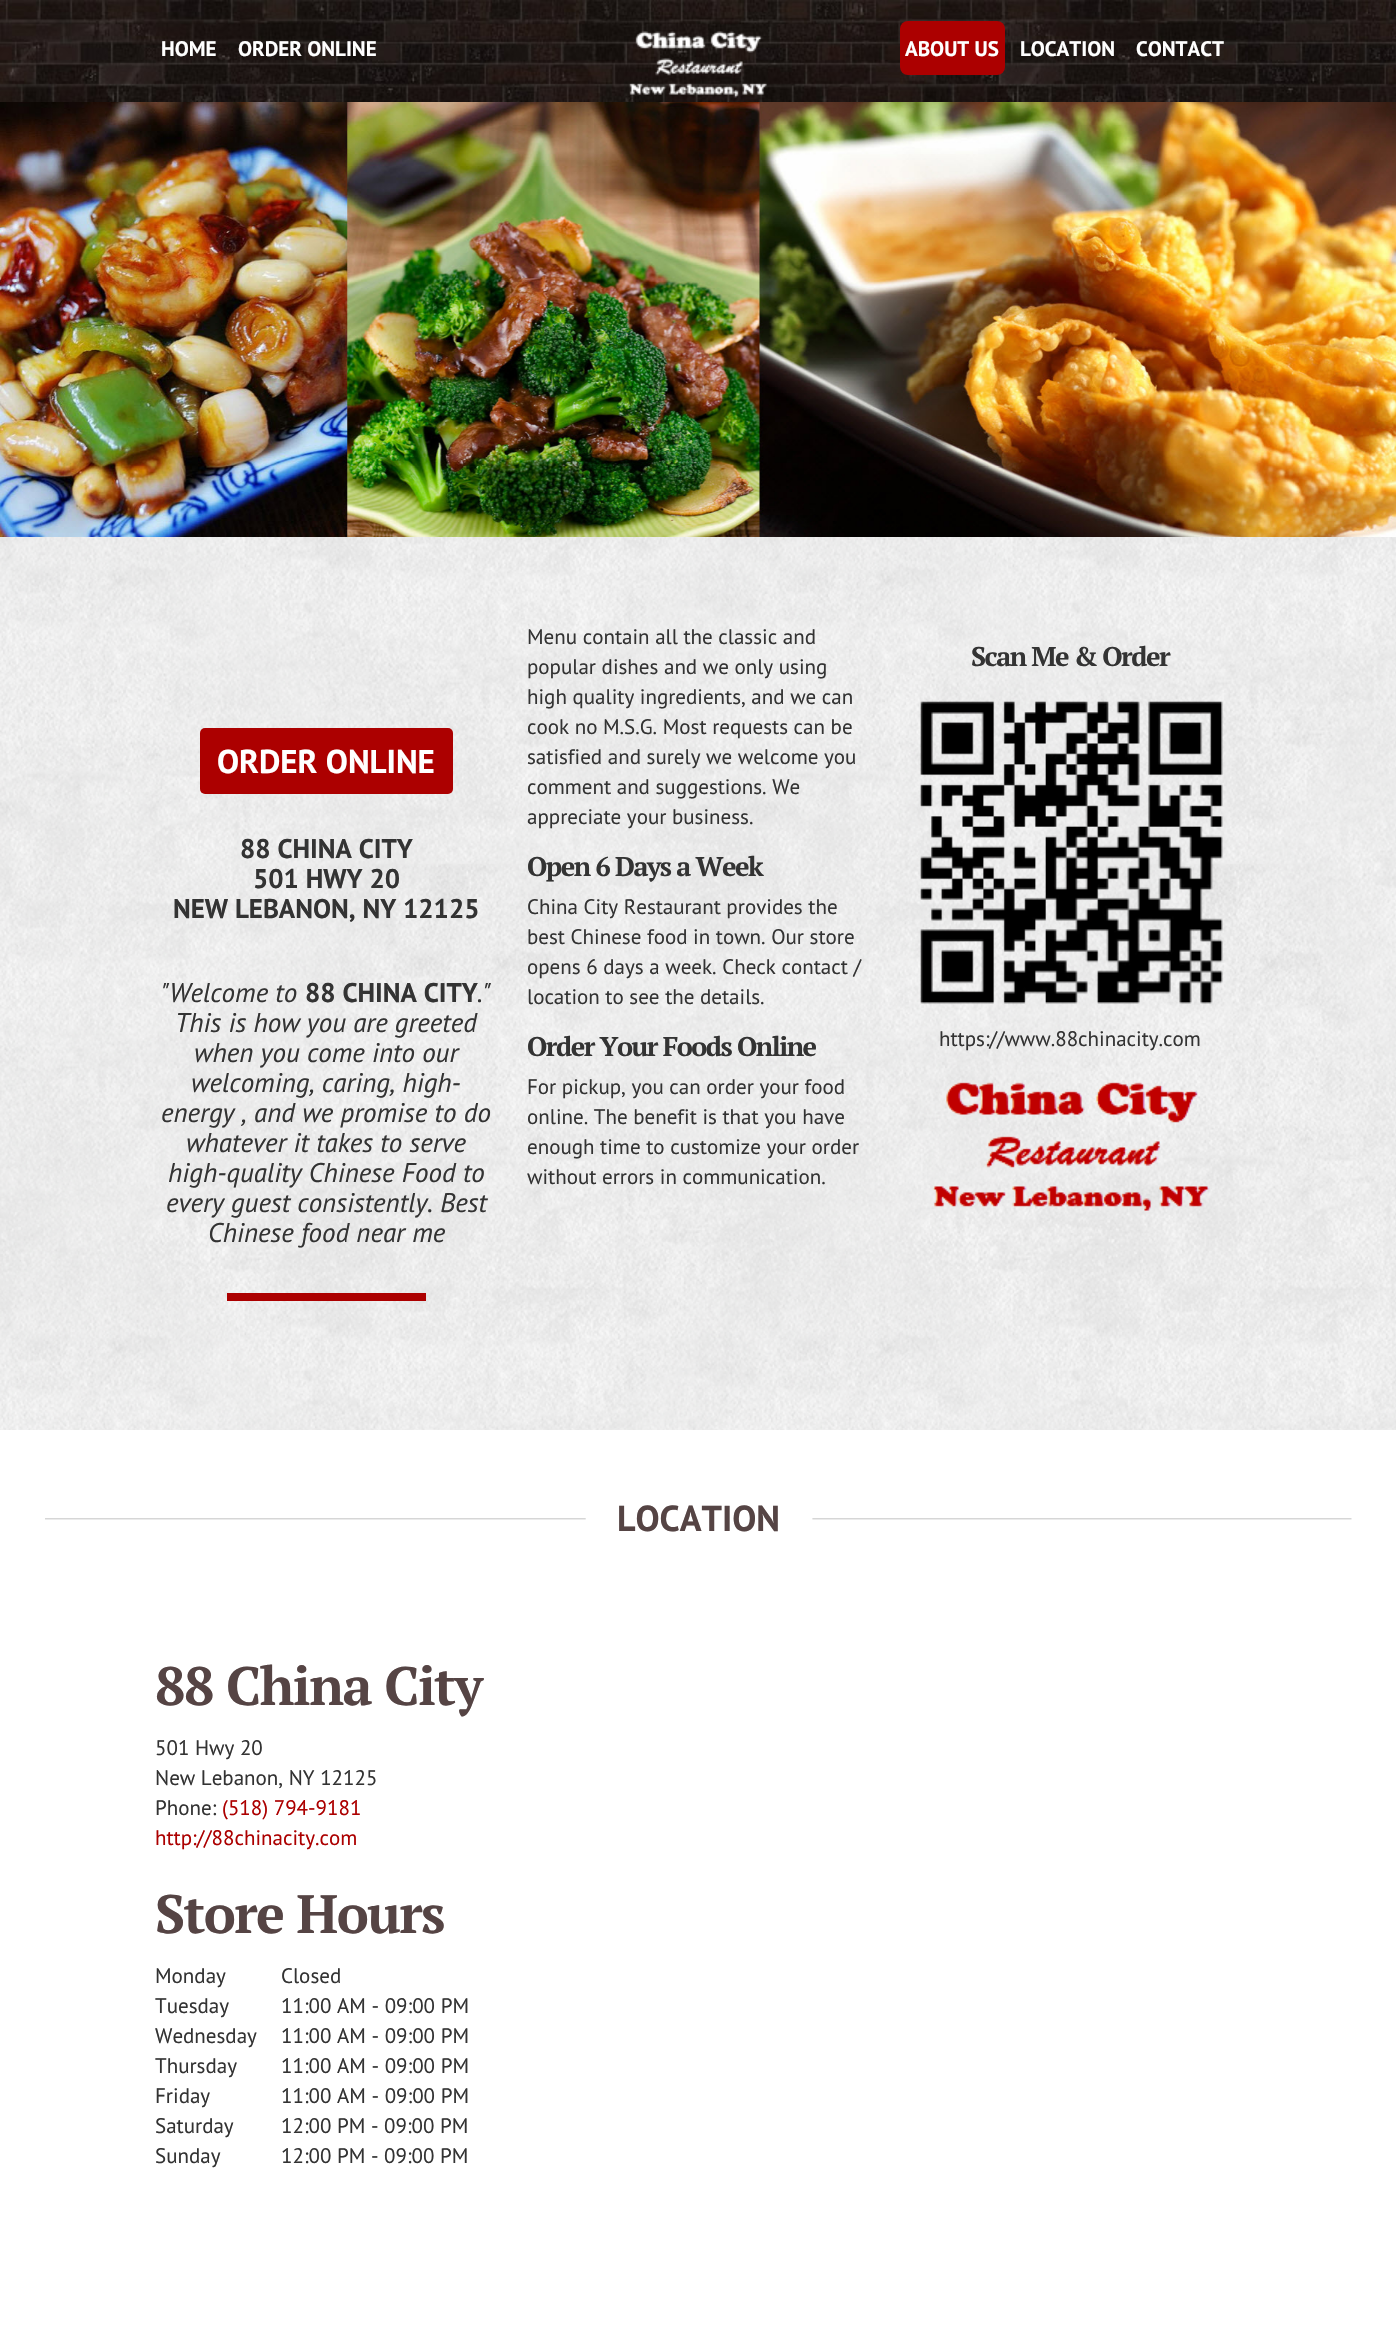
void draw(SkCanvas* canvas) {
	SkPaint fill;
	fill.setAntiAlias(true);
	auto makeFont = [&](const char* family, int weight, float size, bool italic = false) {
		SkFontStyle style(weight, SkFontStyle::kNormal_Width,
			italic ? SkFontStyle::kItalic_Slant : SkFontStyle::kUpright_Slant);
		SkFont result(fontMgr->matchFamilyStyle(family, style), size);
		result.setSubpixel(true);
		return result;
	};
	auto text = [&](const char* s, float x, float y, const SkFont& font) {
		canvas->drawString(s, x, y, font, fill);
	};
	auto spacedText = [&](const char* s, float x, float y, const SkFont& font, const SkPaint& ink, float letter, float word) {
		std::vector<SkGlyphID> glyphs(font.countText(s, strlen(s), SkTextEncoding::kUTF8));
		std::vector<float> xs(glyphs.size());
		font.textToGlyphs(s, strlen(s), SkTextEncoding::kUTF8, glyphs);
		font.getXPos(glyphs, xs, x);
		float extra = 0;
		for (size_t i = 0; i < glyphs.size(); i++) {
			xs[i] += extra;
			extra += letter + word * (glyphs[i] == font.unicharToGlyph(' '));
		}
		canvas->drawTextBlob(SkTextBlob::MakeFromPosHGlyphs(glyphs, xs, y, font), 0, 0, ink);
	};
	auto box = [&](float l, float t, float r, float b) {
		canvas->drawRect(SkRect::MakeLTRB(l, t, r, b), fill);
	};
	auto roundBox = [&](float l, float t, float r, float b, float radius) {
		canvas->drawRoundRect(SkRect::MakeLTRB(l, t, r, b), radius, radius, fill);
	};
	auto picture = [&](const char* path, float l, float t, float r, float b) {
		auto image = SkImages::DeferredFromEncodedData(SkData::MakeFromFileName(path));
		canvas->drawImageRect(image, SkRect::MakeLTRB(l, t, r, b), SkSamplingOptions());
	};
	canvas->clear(0xFFFFFFFF);
	picture("image0.png", 0, 0, 1396, 102);
	picture("image1.png", 629, 31, 767, 98);
	fill.setColor(0xFFAC0000);
	roundBox(900, 21, 1005, 75, 8);
	picture("image2.png", 0, 102, 1396, 537);
	picture("image3.png", 0, 537, 1396, 1430);
	roundBox(200, 728, 453, 794, 5);
	box(227, 1293, 426, 1301);
	picture("image4.png", 920, 701, 1223, 1004);
	picture("image5.png", 932, 1082, 1210, 1211);
	picture("image6.png", 45, 1518, 1352, 1520);
	auto font1 = makeFont("PT Sans", 700, 21);
	fill.setColor(0xFFFFFFFF);
	text("HOME", 161, 56, font1);
	text("ORDER ONLINE", 238, 56, font1);
	text("ABOUT US", 905, 56, font1);
	text("LOCATION", 1020, 56, font1);
	text("CONTACT", 1136, 56, font1);
	auto font2 = makeFont("PT Sans", 700, 33);
	text("ORDER ONLINE", 217, 773, font2);
	auto font3 = makeFont("PT Sans", 700, 27);
	fill.setColor(0xFF333333);
	text("88 CHINA CITY", 240, 858, font3);
	text("501 HWY 20", 253, 888, font3);
	text("NEW LEBANON, NY 12125", 173, 918, font3);
	auto font4 = makeFont("PT Sans", 400, 27, true);
	text("\"Welcome to", 161, 1002, font4);
	text("88 CHINA CITY", 305, 1002, font3);
	text(".\"", 477, 1002, font4);
	text("This is how you are greeted", 175, 1032, font4);
	text("when you come into our", 194, 1062, font4);
	text("welcoming, caring, high-", 191, 1092, font4);
	text("energy , and we promise to do", 161, 1122, font4);
	text("whatever it takes to serve", 186, 1152, font4);
	text("high-quality Chinese Food to", 168, 1182, font4);
	text("every guest consistently. Best", 166, 1212, font4);
	text("Chinese food near me", 208, 1242, font4);
	auto font5 = makeFont("PT Sans", 400, 21);
	text("Menu contain all the classic and", 527, 644, font5);
	text("popular dishes and we only using", 527, 674, font5);
	text("high quality ingredients, and we can", 527, 704, font5);
	text("cook no M.S.G. Most requests can be", 527, 734, font5);
	text("satisfied and surely we welcome you", 527, 764, font5);
	text("comment and suggestions. We", 527, 794, font5);
	text("appreciate your business.", 527, 824, font5);
	auto font6 = makeFont("PT Serif", 700, 27);
	spacedText("Open 6 Days a Week", 527, 876, font6, fill, -1.5f, 0);
	text("China City Restaurant provides the", 527, 914, font5);
	text("best Chinese food in town. Our store", 527, 944, font5);
	text("opens 6 days a week. Check contact /", 527, 974, font5);
	text("location to see the details.", 527, 1004, font5);
	spacedText("Order Your Foods Online", 527, 1056, font6, fill, -1.5f, 0);
	text("For pickup, you can order your food", 527, 1094, font5);
	text("online. The benefit is that you have", 527, 1124, font5);
	text("enough time to customize your order", 527, 1154, font5);
	text("without errors in communication.", 527, 1184, font5);
	spacedText("Scan Me & Order", 971, 666, font6, fill, -1.5f, 0);
	text("https://www.88chinacity.com", 939, 1046, font5);
	auto font7 = makeFont("PT Sans", 700, 36);
	fill.setColor(0xFF554444);
	text("LOCATION", 617, 1531, font7);
	auto font8 = makeFont("PT Serif", 700, 54);
	spacedText("88 China City", 155, 1705, font8, fill, -1.5f, 0);
	fill.setColor(0xFF333333);
	text("501 Hwy 20", 155, 1755, font5);
	text("New Lebanon, NY 12125", 155, 1785, font5);
	text("Phone:", 155, 1815, font5);
	fill.setColor(0xFFAC0000);
	text("(518) 794-9181", 222, 1815, font5);
	text("http://88chinacity.com", 155, 1845, font5);
	fill.setColor(0xFF554444);
	spacedText("Store Hours", 155, 1933, font8, fill, -1.5f, 0);
	fill.setColor(0xFF333333);
	text("Monday", 155, 1983, font5);
	text("Closed", 281, 1983, font5);
	text("Tuesday", 155, 2013, font5);
	text("11:00 AM - 09:00 PM", 281, 2013, font5);
	text("Wednesday", 155, 2043, font5);
	text("11:00 AM - 09:00 PM", 281, 2043, font5);
	text("Thursday", 155, 2073, font5);
	text("11:00 AM - 09:00 PM", 281, 2073, font5);
	text("Friday", 155, 2103, font5);
	text("11:00 AM - 09:00 PM", 281, 2103, font5);
	text("Saturday", 155, 2133, font5);
	text("12:00 PM - 09:00 PM", 281, 2133, font5);
	text("Sunday", 155, 2163, font5);
	text("12:00 PM - 09:00 PM", 281, 2163, font5);
}
